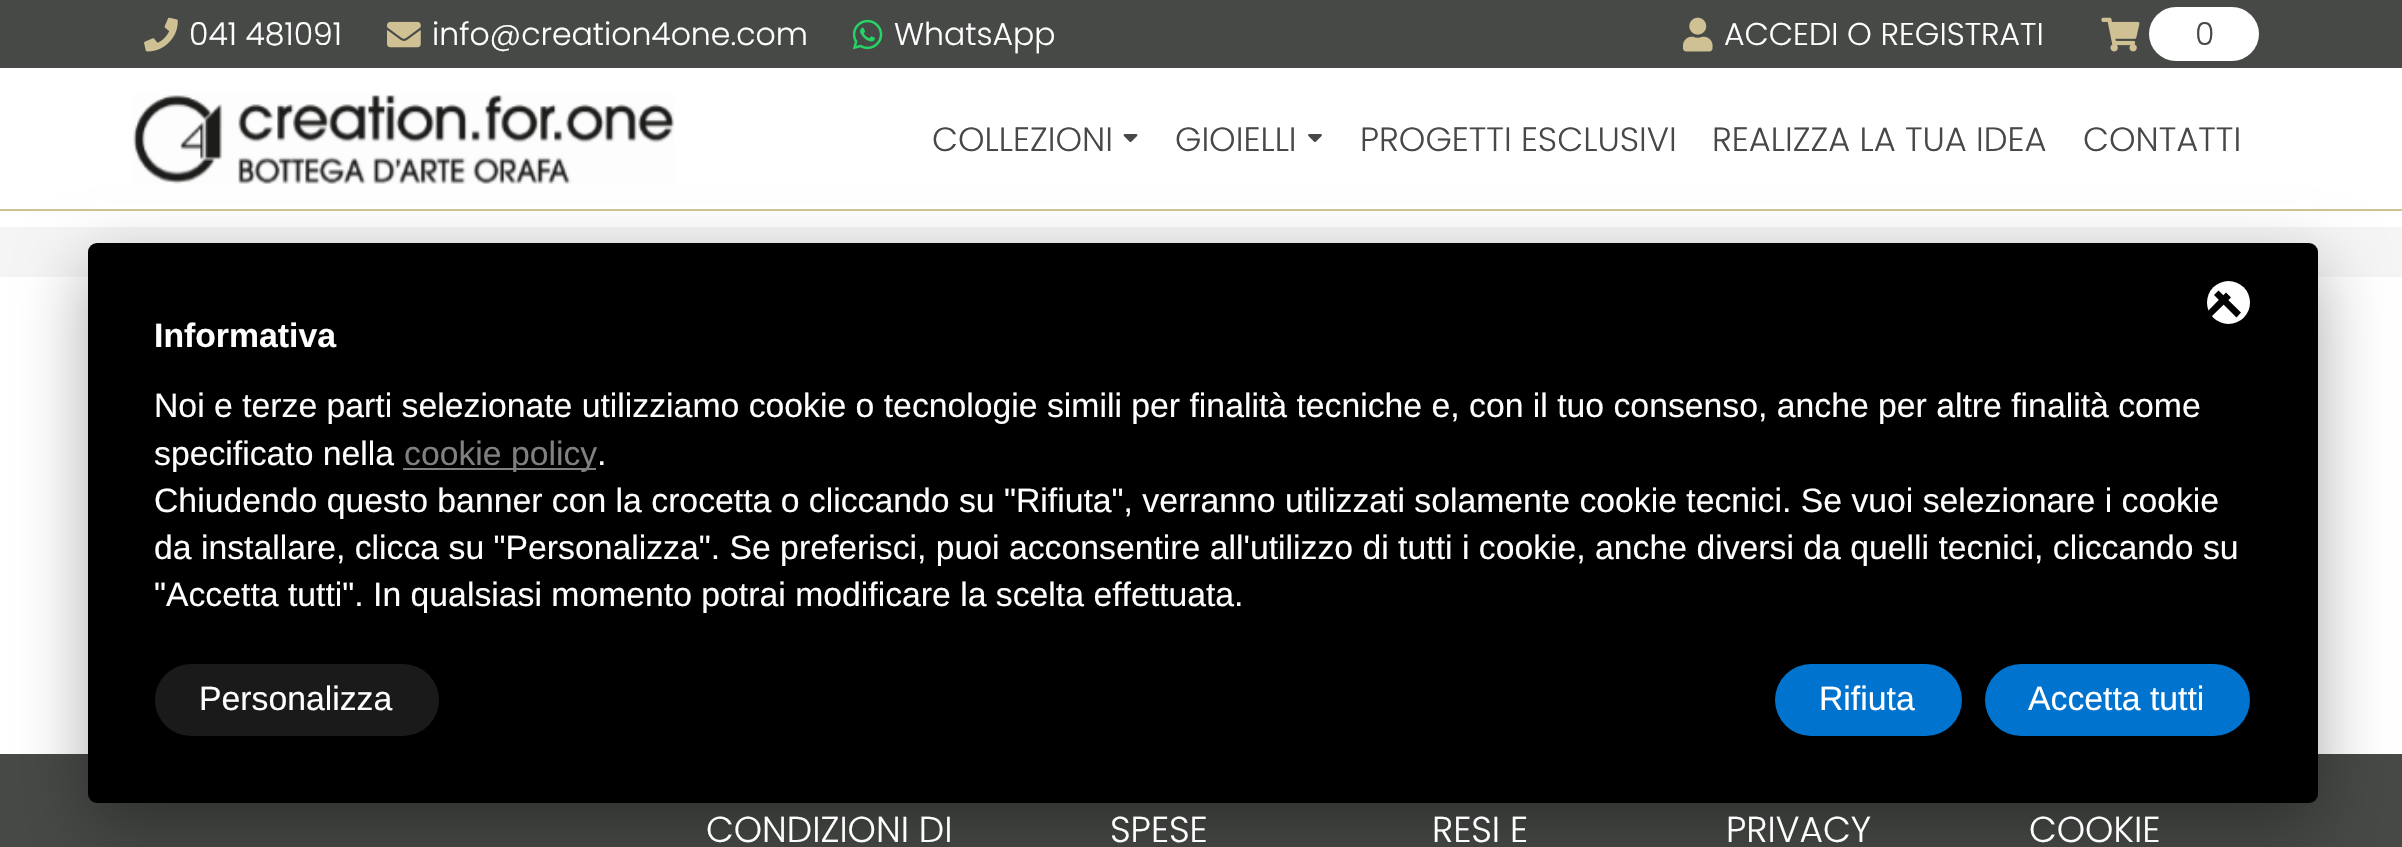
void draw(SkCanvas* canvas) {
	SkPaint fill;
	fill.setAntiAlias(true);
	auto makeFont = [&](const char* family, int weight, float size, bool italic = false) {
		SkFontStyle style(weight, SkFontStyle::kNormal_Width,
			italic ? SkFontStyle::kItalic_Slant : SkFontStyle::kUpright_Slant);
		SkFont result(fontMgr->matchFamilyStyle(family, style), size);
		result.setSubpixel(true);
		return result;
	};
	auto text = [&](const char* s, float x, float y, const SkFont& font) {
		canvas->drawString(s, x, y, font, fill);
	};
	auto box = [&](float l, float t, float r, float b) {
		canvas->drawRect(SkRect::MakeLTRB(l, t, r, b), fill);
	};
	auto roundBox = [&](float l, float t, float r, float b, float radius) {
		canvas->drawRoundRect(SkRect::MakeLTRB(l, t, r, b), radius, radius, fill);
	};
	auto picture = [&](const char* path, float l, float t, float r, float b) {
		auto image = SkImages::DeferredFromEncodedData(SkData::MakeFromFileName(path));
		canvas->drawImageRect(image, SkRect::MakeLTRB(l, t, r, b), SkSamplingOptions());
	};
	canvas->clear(0xFFFFFFFF);
	fill.setColor(0xFFF5F5F5);
	box(0, 227, 2402, 277);
	fill.setColor(0xFF464946);
	box(0, 754, 2402, 847);
	fill.setColor(0x54000000);
	fill.setMaskFilter(SkMaskFilter::MakeBlur(kNormal_SkBlurStyle, 34));
	canvas->drawRoundRect(SkRect::MakeLTRB(88, 266, 2318, 826), 9, 9, fill);
	fill.setMaskFilter(nullptr);
	fill.setColor(0xFFFFFFFF);
	box(94, 202, 2312, 212);
	fill.setColor(0xFFD0C195);
	box(0, 209, 2402, 211);
	fill.setColor(0xFF464946);
	box(0, 0, 2402, 68);
	picture("image0.png", 144, 17, 178, 52);
	picture("image1.png", 387, 21, 421, 48);
	picture("image2.png", 852, 19, 883, 50);
	picture("image3.png", 1683, 17, 1713, 52);
	picture("image4.png", 2101, 17, 2140, 52);
	fill.setColor(0xFFFFFFFF);
	roundBox(2149, 7, 2259, 61, 27);
	picture("image5.png", 133, 94, 675, 184);
	picture("image6.png", 1123, 134, 1138, 143);
	picture("image7.png", 1308, 134, 1322, 142);
	fill.setColor(0xFF000000);
	roundBox(88, 243, 2318, 803, 9);
	fill.setColor(0xFFFFFFFF);
	canvas->drawCircle(2228.5f, 302.5f, 21.5f, fill);
	fill.setColor(0xFF000000);
	canvas->drawPath(SkPathBuilder().moveTo(2214, 295).lineTo(2218.5f, 290.5f).lineTo(2241, 312.5f).lineTo(2236.5f, 317.5f).close().detach(), fill);
	canvas->drawPath(SkPathBuilder().moveTo(2226, 292.5f).lineTo(2231, 297.5f).lineTo(2211.5f, 316.5f).lineTo(2207, 312).close().detach(), fill);
	fill.setColor(0xFF808080);
	box(403, 468, 596, 470);
	fill.setColor(0xFF1A1A1A);
	roundBox(155, 664, 439, 736, 36);
	fill.setColor(0xFF0073CE);
	roundBox(1775, 664, 1962, 736, 36);
	roundBox(1985, 664, 2250, 736, 36);
	auto font1 = makeFont("Poppins", 300, 31.5f);
	fill.setColor(0xFFFFFFFF);
	text("041 481091", 189, 45, font1);
	text("info@creation4one.com", 432, 45, font1);
	text("WhatsApp", 894, 45, font1);
	text("ACCEDI O REGISTRATI", 1724, 45, font1);
	fill.setColor(0xFF464946);
	text("0", 2195, 45, font1);
	auto font2 = makeFont("Poppins", 300, 33.75f);
	text("COLLEZIONI", 932, 151, font2);
	text("GIOIELLI", 1175, 151, font2);
	text("PROGETTI ESCLUSIVI", 1360, 151, font2);
	text("REALIZZA LA TUA IDEA", 1712, 151, font2);
	text("CONTATTI", 2083, 151, font2);
	auto font3 = makeFont("Liberation Sans", 700, 33.75f);
	fill.setColor(0xFFFFFFFF);
	text("Informativa", 154, 347, font3);
	auto font4 = makeFont("Liberation Sans", 400, 33.75f);
	text("Noi e terze parti selezionate utilizziamo cookie o tecnologie simili per finalità tecniche e, con il tuo consenso, anche per altre finalità come", 154, 417, font4);
	text("specificato nella", 154, 465, font4);
	fill.setColor(0xFF808080);
	text("cookie policy", 404, 465, font4);
	fill.setColor(0xFFFFFFFF);
	text(".", 597, 465, font4);
	text("Chiudendo questo banner con la crocetta o cliccando su \"Rifiuta\", verranno utilizzati solamente cookie tecnici. Se vuoi selezionare i cookie", 154, 512, font4);
	text("da installare, clicca su \"Personalizza\". Se preferisci, puoi acconsentire all'utilizzo di tutti i cookie, anche diversi da quelli tecnici, cliccando su", 154, 559, font4);
	text("\"Accetta tutti\". In qualsiasi momento potrai modificare la scelta effettuata.", 154, 606, font4);
	text("Personalizza", 199, 710, font4);
	text("Rifiuta", 1819, 710, font4);
	text("Accetta tutti", 2028, 710, font4);
	auto font5 = makeFont("Poppins", 300, 36);
	text("CONDIZIONI DI", 706, 842, font5);
	text("SPESE", 1110, 842, font5);
	text("RESI E", 1432, 842, font5);
	text("PRIVACY", 1726, 842, font5);
	text("COOKIE", 2029, 842, font5);
}
